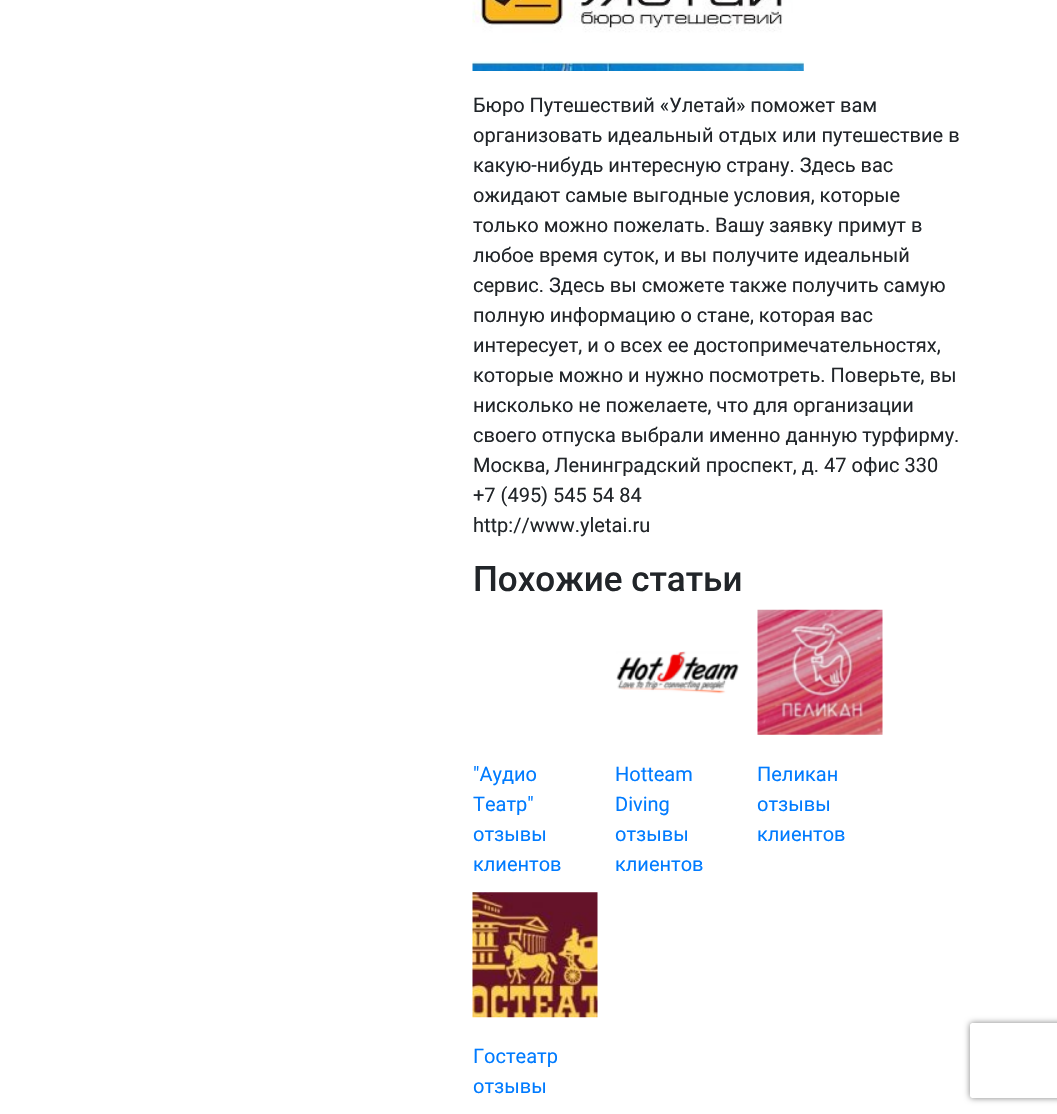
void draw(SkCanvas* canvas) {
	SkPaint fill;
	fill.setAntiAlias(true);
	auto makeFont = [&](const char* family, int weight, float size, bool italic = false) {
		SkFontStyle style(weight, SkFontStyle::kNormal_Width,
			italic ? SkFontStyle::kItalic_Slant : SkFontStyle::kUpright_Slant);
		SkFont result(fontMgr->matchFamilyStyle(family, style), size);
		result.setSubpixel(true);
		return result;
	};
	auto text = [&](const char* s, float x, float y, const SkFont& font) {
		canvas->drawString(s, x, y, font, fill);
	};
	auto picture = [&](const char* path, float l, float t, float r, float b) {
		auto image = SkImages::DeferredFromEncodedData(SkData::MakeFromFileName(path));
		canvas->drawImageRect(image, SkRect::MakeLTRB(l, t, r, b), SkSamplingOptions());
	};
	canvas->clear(0xFFFFFFFF);
	picture("image0.png", 472, 0, 804, 71);
	picture("image1.png", 616, 651, 739, 694);
	picture("image2.png", 757, 609, 883, 735);
	picture("image3.png", 472, 892, 598, 1018);
	canvas->save();
	canvas->clipPath(SkPathBuilder(SkPathFillType::kEvenOdd).moveTo(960, 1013).lineTo(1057, 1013).lineTo(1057, 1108).lineTo(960, 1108).close().moveTo(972.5f, 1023).lineTo(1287.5f, 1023).cubicTo(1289, 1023, 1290, 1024, 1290, 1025.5f).lineTo(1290, 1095.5f).cubicTo(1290, 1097, 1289, 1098, 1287.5f, 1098).lineTo(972.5f, 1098).cubicTo(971, 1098, 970, 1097, 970, 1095.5f).lineTo(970, 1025.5f).cubicTo(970, 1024, 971, 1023, 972.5f, 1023).close().detach(), true);
	fill.setColor(0xFF808080);
	fill.setMaskFilter(SkMaskFilter::MakeBlur(kNormal_SkBlurStyle, 3));
	canvas->drawRoundRect(SkRect::MakeLTRB(970, 1023, 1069, 1098), 2.5f, 2.5f, fill);
	fill.setMaskFilter(nullptr);
	canvas->restore();
	auto font1 = makeFont("Roboto", 400, 20);
	fill.setColor(0xFF212529);
	text("Бюро Путешествий «Улетай» поможет вам", 473, 112, font1);
	text("организовать идеальный отдых или путешествие в", 473, 142, font1);
	text("какую-нибудь интересную страну. Здесь вас", 473, 172, font1);
	text("ожидают самые выгодные условия, которые", 473, 202, font1);
	text("только можно пожелать. Вашу заявку примут в", 473, 232, font1);
	text("любое время суток, и вы получите идеальный", 473, 262, font1);
	text("сервис. Здесь вы сможете также получить самую", 473, 292, font1);
	text("полную информацию о стане, которая вас", 473, 322, font1);
	text("интересует, и о всех ее достопримечательностях,", 473, 352, font1);
	text("которые можно и нужно посмотреть. Поверьте, вы", 473, 382, font1);
	text("нисколько не пожелаете, что для организации", 473, 412, font1);
	text("своего отпуска выбрали именно данную турфирму.", 473, 442, font1);
	text("Москва, Ленинградский проспект, д. 47 офис 330", 473, 472, font1);
	text("+7 (495) 545 54 84", 473, 502, font1);
	text("http://www.yletai.ru", 473, 532, font1);
	auto font2 = makeFont("Roboto", 500, 35);
	text("Похожие статьи", 473, 591, font2);
	fill.setColor(0xFF007BFF);
	text("\"Аудио", 473, 781, font1);
	text("Театр\"", 473, 811, font1);
	text("отзывы", 473, 841, font1);
	text("клиентов", 473, 871, font1);
	text("Hotteam", 615, 781, font1);
	text("Diving", 615, 811, font1);
	text("отзывы", 615, 841, font1);
	text("клиентов", 615, 871, font1);
	text("Пеликан", 757, 781, font1);
	text("отзывы", 757, 811, font1);
	text("клиентов", 757, 841, font1);
	text("Гостеатр", 473, 1063, font1);
	text("отзывы", 473, 1093, font1);
}
